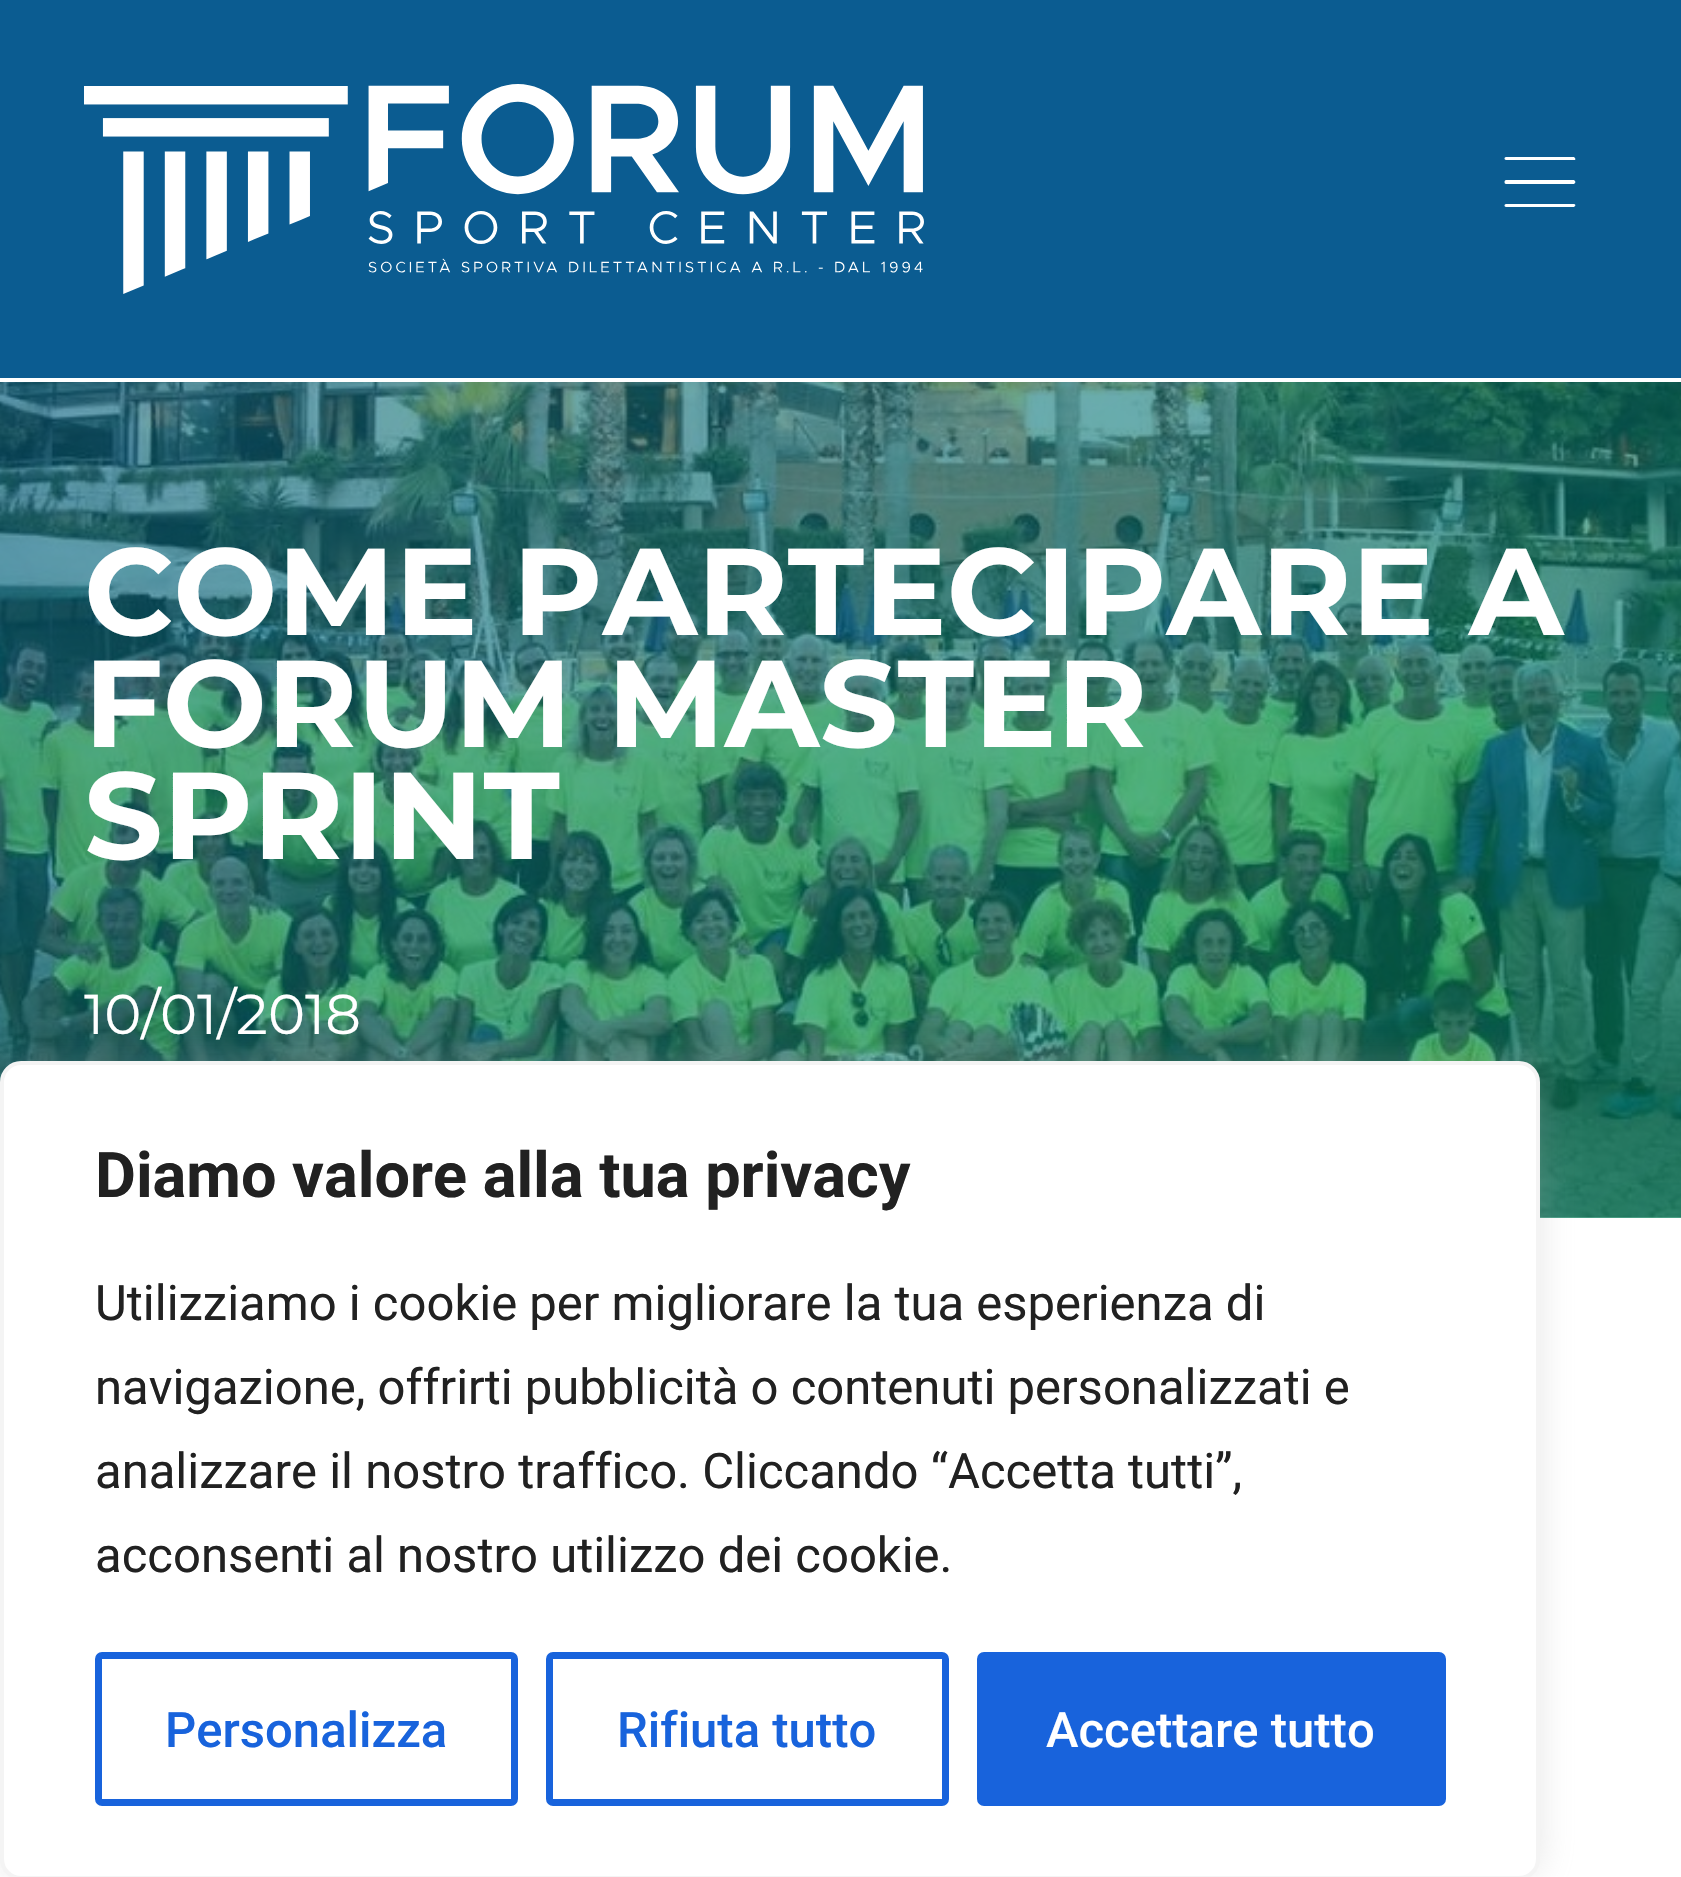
void draw(SkCanvas* canvas) {
	SkPaint fill;
	fill.setAntiAlias(true);
	auto makeFont = [&](const char* family, int weight, float size, bool italic = false) {
		SkFontStyle style(weight, SkFontStyle::kNormal_Width,
			italic ? SkFontStyle::kItalic_Slant : SkFontStyle::kUpright_Slant);
		SkFont result(fontMgr->matchFamilyStyle(family, style), size);
		result.setSubpixel(true);
		return result;
	};
	auto text = [&](const char* s, float x, float y, const SkFont& font) {
		canvas->drawString(s, x, y, font, fill);
	};
	auto box = [&](float l, float t, float r, float b) {
		canvas->drawRect(SkRect::MakeLTRB(l, t, r, b), fill);
	};
	auto picture = [&](const char* path, float l, float t, float r, float b) {
		auto image = SkImages::DeferredFromEncodedData(SkData::MakeFromFileName(path));
		canvas->drawImageRect(image, SkRect::MakeLTRB(l, t, r, b), SkSamplingOptions());
	};
	canvas->clear(0xFFFFFFFF);
	fill.setColor(0xFF0B5C91);
	box(0, 0, 1681, 378);
	picture("image0.png", 84, 84, 924, 294);
	fill.setColor(0xFFFFFFFF);
	canvas->drawPath(SkPathBuilder().moveTo(1506, 157).cubicTo(1504, 157, 1504, 160, 1506, 160).lineTo(1574, 160).lineTo(1575, 160).cubicTo(1576, 159, 1575, 158, 1574, 157).close().moveTo(1506, 180).cubicTo(1504, 180, 1504, 184, 1506, 184).lineTo(1574, 184).lineTo(1575, 183).cubicTo(1576, 182, 1575, 181, 1574, 180).close().moveTo(1506, 204).cubicTo(1504, 204, 1504, 207, 1506, 207).lineTo(1574, 207).lineTo(1575, 206).cubicTo(1576, 205, 1575, 204, 1574, 204).close().detach(), fill);
	picture("image1.png", 0, 382, 1681, 1218);
	{
		const SkColor colors[] = {0x990B5C91, 0x99008D5E};
		const float stops[] = {0, 1};
		const SkPoint ends[] = {{346, -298}, {1337, 1418}};
		fill.setShader(SkGradientShader::MakeLinear(ends, colors, stops, 2, SkTileMode::kClamp));
		fill.setAlpha(255);
	}
	box(0, 382, 1681, 1218);
	fill.setShader(nullptr);
	fill.setColor(0x4DACABAB);
	fill.setMaskFilter(SkMaskFilter::MakeBlur(kNormal_SkBlurStyle, 17.5f));
	canvas->drawRoundRect(SkRect::MakeLTRB(0, 1057, 1540, 1876), 21, 21, fill);
	fill.setMaskFilter(nullptr);
	fill.setColor(0xFFFFFFFF);
	canvas->drawRoundRect(SkRect::MakeLTRB(2, 1063, 1538, 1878), 19, 19, fill);
	fill.setStyle(SkPaint::kStroke_Style);
	fill.setStrokeWidth(4);
	fill.setColor(0xFFF4F4F4);
	canvas->drawRoundRect(SkRect::MakeLTRB(2, 1063, 1538, 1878), 19, 19, fill);
	fill.setStrokeWidth(7);
	fill.setColor(0xFF1863DC);
	canvas->drawRoundRect(SkRect::MakeLTRB(98.5f, 1655.5f, 514.5f, 1802.5f), 3.5f, 3.5f, fill);
	canvas->drawRoundRect(SkRect::MakeLTRB(549.5f, 1655.5f, 945.5f, 1802.5f), 3.5f, 3.5f, fill);
	fill.setStyle(SkPaint::kFill_Style);
	canvas->drawRoundRect(SkRect::MakeLTRB(980.5f, 1655.5f, 1442.5f, 1802.5f), 3.5f, 3.5f, fill);
	fill.setStyle(SkPaint::kStroke_Style);
	canvas->drawRoundRect(SkRect::MakeLTRB(980.5f, 1655.5f, 1442.5f, 1802.5f), 3.5f, 3.5f, fill);
	auto font1 = makeFont("Montserrat", 700, 123.25f);
	fill.setStyle(SkPaint::kFill_Style);
	fill.setColor(0xFFFFFFFF);
	text("COME PARTECIPARE A", 84, 635, font1);
	text("FORUM MASTER", 84, 747, font1);
	text("SPRINT", 84, 859, font1);
	auto font2 = makeFont("Montserrat", 400, 56);
	text("10/01/2018", 84, 1034, font2);
	auto font3 = makeFont("Roboto", 700, 63);
	fill.setColor(0xFF212121);
	text("Diamo valore alla tua privacy", 95, 1197, font3);
	auto font4 = makeFont("Roboto", 400, 49);
	text("Utilizziamo i cookie per migliorare la tua esperienza di", 95, 1320, font4);
	text("navigazione, offrirti pubblicità o contenuti personalizzati e", 95, 1404, font4);
	text("analizzare il nostro traffico. Cliccando “Accetta tutti”,", 95, 1488, font4);
	text("acconsenti al nostro utilizzo dei cookie.", 95, 1572, font4);
	auto font5 = makeFont("Roboto", 500, 49);
	fill.setColor(0xFF1863DC);
	text("Personalizza", 165, 1747, font5);
	text("Rifiuta tutto", 617, 1747, font5);
	fill.setColor(0xFFFFFFFF);
	text("Accettare tutto", 1046, 1747, font5);
}
